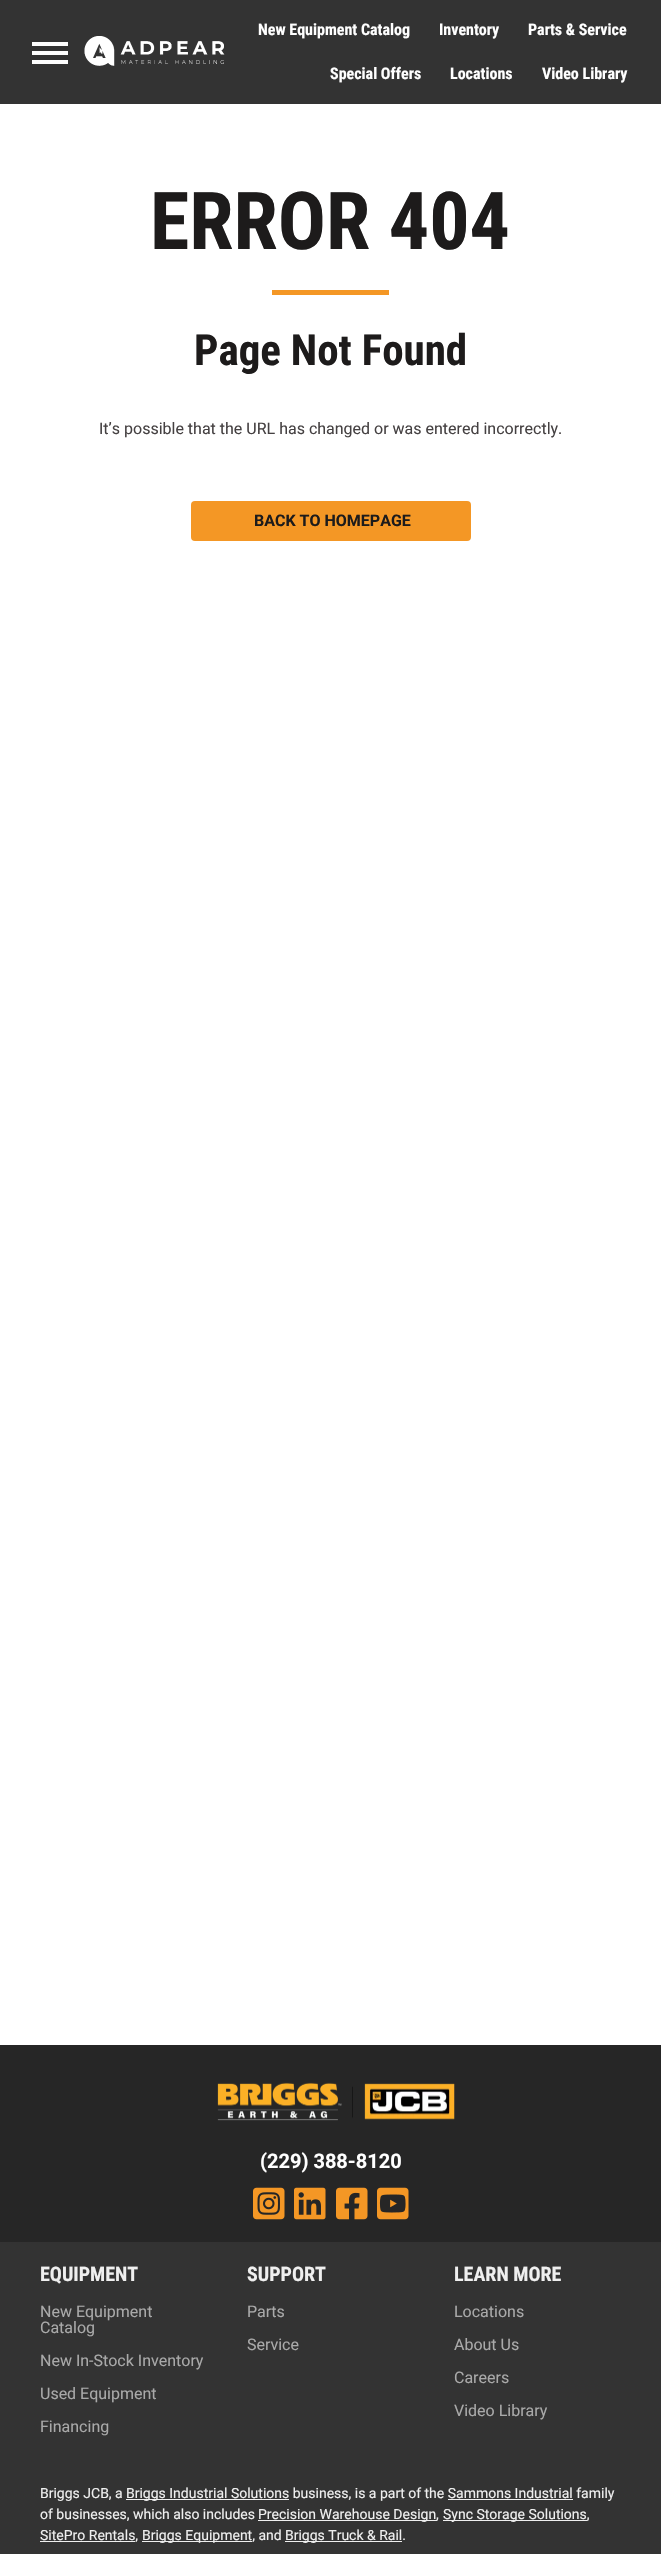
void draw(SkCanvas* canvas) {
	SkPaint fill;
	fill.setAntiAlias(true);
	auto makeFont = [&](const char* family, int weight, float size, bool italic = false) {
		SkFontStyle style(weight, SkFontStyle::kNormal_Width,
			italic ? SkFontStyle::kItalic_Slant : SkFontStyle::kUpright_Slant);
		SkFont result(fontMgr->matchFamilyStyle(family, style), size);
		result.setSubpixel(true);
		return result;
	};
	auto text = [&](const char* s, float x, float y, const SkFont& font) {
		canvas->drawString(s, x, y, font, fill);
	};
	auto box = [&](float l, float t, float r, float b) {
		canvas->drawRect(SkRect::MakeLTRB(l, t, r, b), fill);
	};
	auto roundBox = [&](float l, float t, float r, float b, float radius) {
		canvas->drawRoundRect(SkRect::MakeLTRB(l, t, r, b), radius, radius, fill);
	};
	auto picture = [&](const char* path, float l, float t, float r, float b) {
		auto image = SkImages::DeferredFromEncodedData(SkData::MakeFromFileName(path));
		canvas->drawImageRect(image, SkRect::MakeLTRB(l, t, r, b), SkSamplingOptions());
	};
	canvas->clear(0xFFFFFFFF);
	fill.setColor(0xFF333333);
	box(0, 0, 661, 104);
	fill.setColor(0xFFFFFFFF);
	box(32, 51, 68, 55);
	box(32, 42, 68, 46);
	box(32, 60, 68, 64);
	picture("image0.png", 84, 36, 225, 66);
	fill.setColor(0xFFF49725);
	box(272, 290, 389, 295);
	roundBox(191, 501, 471, 541, 4);
	fill.setColor(0xFF262626);
	box(0, 2045, 661, 2242);
	picture("image1.png", 217, 2082, 455, 2121);
	picture("image2.png", 253, 2187, 285, 2220);
	picture("image3.png", 294, 2187, 326, 2220);
	picture("image4.png", 336, 2187, 368, 2220);
	picture("image5.png", 377, 2187, 409, 2220);
	fill.setColor(0xFF333333);
	box(0, 2242, 661, 2554);
	fill.setColor(0xFFEFEFEF);
	box(126, 2499, 289, 2500);
	box(448, 2499, 573, 2500);
	box(258, 2520, 437, 2521);
	box(443, 2520, 587, 2521);
	box(40, 2541, 135, 2542);
	box(142, 2541, 252, 2542);
	box(285, 2541, 402, 2542);
	auto font1 = makeFont("Roboto Condensed", 700, 16);
	fill.setColor(0xFFFFFFFF);
	text("New Equipment Catalog", 258, 35, font1);
	text("Inventory", 439, 35, font1);
	text("Parts & Service", 528, 35, font1);
	text("Special Offers", 330, 79, font1);
	text("Locations", 450, 79, font1);
	text("Video Library", 542, 79, font1);
	auto font2 = makeFont("Roboto Condensed", 700, 80);
	fill.setColor(0xFF1D1B1B);
	text("ERROR 404", 150, 249, font2);
	auto font3 = makeFont("Roboto Condensed", 700, 43);
	text("Page Not Found", 194, 365, font3);
	auto font4 = makeFont("Roboto", 400, 16);
	fill.setColor(0xFF454142);
	text("It’s possible that the URL has changed or was entered incorrectly.", 99, 434, font4);
	auto font5 = makeFont("Roboto", 700, 16);
	fill.setColor(0xFF1D1B1B);
	text("BACK TO HOMEPAGE", 254, 526, font5);
	auto font6 = makeFont("Roboto", 700, 20);
	fill.setColor(0xFFFFFFFF);
	text("(229) 388-8120", 260, 2168, font6);
	auto font7 = makeFont("Roboto Condensed", 700, 20);
	fill.setColor(0xFFEFEFEF);
	text("EQUIPMENT", 40, 2281, font7);
	fill.setColor(0xFFA9A9A9);
	text("New Equipment", 40, 2317, font4);
	text("Catalog", 40, 2333, font4);
	text("New In-Stock Inventory", 40, 2366, font4);
	text("Used Equipment", 40, 2399, font4);
	text("Financing", 40, 2432, font4);
	fill.setColor(0xFFEFEFEF);
	text("SUPPORT", 247, 2281, font7);
	fill.setColor(0xFFA9A9A9);
	text("Parts", 247, 2317, font4);
	text("Service", 247, 2350, font4);
	fill.setColor(0xFFEFEFEF);
	text("LEARN MORE", 454, 2281, font7);
	fill.setColor(0xFFA9A9A9);
	text("Locations", 454, 2317, font4);
	text("About Us", 454, 2350, font4);
	text("Careers", 454, 2383, font4);
	text("Video Library", 454, 2416, font4);
	auto font8 = makeFont("Roboto", 400, 14);
	fill.setColor(0xFFEFEFEF);
	text("Briggs JCB, a", 40, 2498, font8);
	text("Briggs Industrial Solutions business, is a part of the Sammons Industrial family", 126, 2498, font8);
	text("of businesses, which also includes", 40, 2519, font8);
	text("Precision Warehouse Design,", 258, 2519, font8);
	text("Sync Storage Solutions,", 443, 2519, font8);
	text("SitePro Rentals,", 40, 2540, font8);
	text("Briggs Equipment, and", 142, 2540, font8);
	text("Briggs Truck & Rail.", 285, 2540, font8);
}
